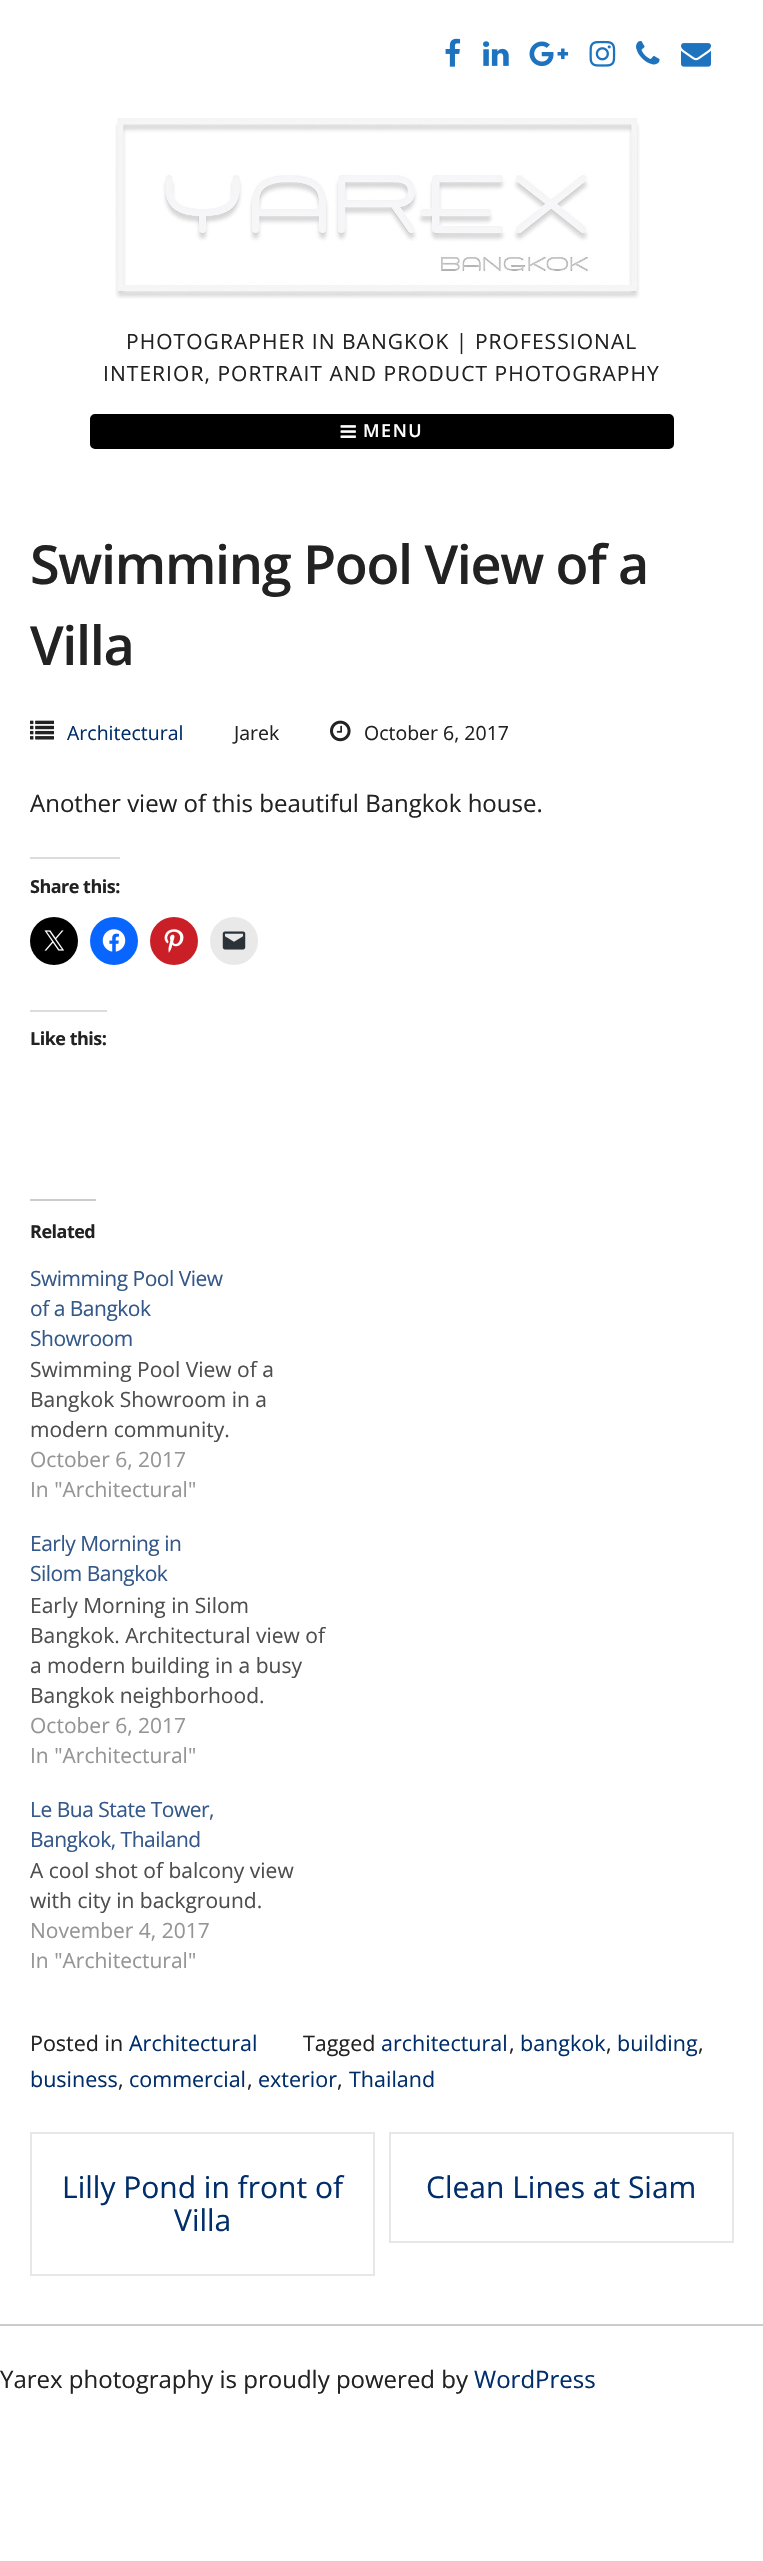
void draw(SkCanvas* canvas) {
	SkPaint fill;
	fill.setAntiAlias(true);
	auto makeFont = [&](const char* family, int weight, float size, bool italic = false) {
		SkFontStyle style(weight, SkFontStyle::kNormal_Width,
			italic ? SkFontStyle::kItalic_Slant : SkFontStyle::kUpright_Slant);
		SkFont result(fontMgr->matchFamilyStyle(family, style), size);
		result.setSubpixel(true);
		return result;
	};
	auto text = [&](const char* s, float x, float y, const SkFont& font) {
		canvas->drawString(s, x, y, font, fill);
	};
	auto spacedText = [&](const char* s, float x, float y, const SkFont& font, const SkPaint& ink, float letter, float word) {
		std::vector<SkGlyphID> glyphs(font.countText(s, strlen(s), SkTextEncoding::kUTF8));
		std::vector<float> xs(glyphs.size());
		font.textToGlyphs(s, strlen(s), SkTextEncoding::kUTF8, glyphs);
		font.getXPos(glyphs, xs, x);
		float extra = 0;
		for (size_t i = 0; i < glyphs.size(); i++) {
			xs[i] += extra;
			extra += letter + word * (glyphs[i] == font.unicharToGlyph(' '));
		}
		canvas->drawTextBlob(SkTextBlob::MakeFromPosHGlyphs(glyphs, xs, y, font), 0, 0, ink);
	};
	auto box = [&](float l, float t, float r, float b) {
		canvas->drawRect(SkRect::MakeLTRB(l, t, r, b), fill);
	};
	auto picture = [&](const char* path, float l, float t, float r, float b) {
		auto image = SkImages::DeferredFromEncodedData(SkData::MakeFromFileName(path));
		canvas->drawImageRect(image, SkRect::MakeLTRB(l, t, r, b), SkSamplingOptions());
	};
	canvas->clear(0xFFFFFFFF);
	picture("image0.png", 445, 38, 461, 67);
	picture("image1.png", 483, 41, 509, 66);
	picture("image2.png", 529, 41, 569, 67);
	picture("image3.png", 589, 40, 616, 67);
	picture("image4.png", 636, 41, 660, 65);
	picture("image5.png", 681, 43, 711, 67);
	picture("image6.png", 115, 118, 640, 299);
	fill.setColor(0xFF000000);
	canvas->drawRoundRect(SkRect::MakeLTRB(91, 415, 673, 448), 4, 4, fill);
	fill.setStyle(SkPaint::kStroke_Style);
	fill.setStrokeWidth(2);
	canvas->drawRoundRect(SkRect::MakeLTRB(91, 415, 673, 448), 4, 4, fill);
	picture("image7.png", 340, 425, 356, 438);
	picture("image8.png", 30, 720, 54, 740);
	picture("image9.png", 330, 720, 351, 742);
	fill.setStyle(SkPaint::kFill_Style);
	fill.setColor(0xFFDCDCDE);
	box(30, 857, 120, 859);
	fill.setColor(0xFF000000);
	canvas->drawCircle(54, 941, 24, fill);
	picture("image10.png", 44, 930, 65, 951);
	fill.setColor(0xFF0866FF);
	canvas->drawCircle(114, 941, 24, fill);
	picture("image11.png", 102, 929, 126, 952);
	fill.setColor(0xFFCA1F27);
	canvas->drawCircle(174, 941, 24, fill);
	picture("image12.png", 164, 929, 184, 953);
	fill.setColor(0xFFE9E9E9);
	canvas->drawCircle(234, 941, 24, fill);
	picture("image13.png", 222, 931, 246, 950);
	fill.setColor(0xFFDCDCDE);
	box(30, 1010, 107, 1012);
	fill.setColor(0xFFCCCCCC);
	box(30, 1199, 96, 1201);
	fill.setStyle(SkPaint::kStroke_Style);
	fill.setColor(0xFFE6E7E8);
	canvas->drawRect(SkRect::MakeLTRB(31, 2133, 374, 2275), fill);
	canvas->drawRect(SkRect::MakeLTRB(390, 2133, 733, 2242), fill);
	fill.setStyle(SkPaint::kFill_Style);
	fill.setColor(0xFFCCCCCC);
	box(0, 2324, 763, 2326);
	auto font1 = makeFont("Open Sans", 400, 21);
	fill.setColor(0xFF222222);
	spacedText("PHOTOGRAPHER IN BANGKOK | PROFESSIONAL", 126, 349, font1, fill, 1.05f, 0);
	spacedText("INTERIOR, PORTRAIT AND PRODUCT PHOTOGRAPHY", 103, 381, font1, fill, 1.05f, 0);
	auto font2 = makeFont("Open Sans", 600, 18);
	fill.setColor(0xFFFFFFFF);
	spacedText("MENU", 363, 437, font2, fill, 1.5f, 0);
	auto font3 = makeFont("Open Sans", 600, 54);
	fill.setColor(0xFF222222);
	spacedText("Swimming Pool View of a", 30, 584, font3, fill, -1.35f, 0);
	spacedText("Villa", 30, 665, font3, fill, -1.35f, 0);
	auto font4 = makeFont("Open Sans", 400, 19.5f);
	fill.setColor(0xFF002E6B);
	text("Architectural", 67, 740, font4);
	fill.setColor(0xFF222222);
	text("Jarek", 234, 740, font4);
	text("October 6, 2017", 364, 740, font4);
	auto font5 = makeFont("Open Sans", 400, 24);
	text("Another view of this beautiful Bangkok house.", 30, 812, font5);
	auto font6 = makeFont("Open Sans", 700, 18);
	spacedText("Share this:", 30, 893, font6, fill, -0.5f, 0);
	spacedText("Like this:", 30, 1045, font6, fill, -0.5f, 0);
	spacedText("Related", 30, 1238, font6, fill, -0.5f, 0);
	fill.setColor(0xFF335889);
	spacedText("Swimming Pool View", 30, 1286, font1, fill, -0.5f, 0);
	spacedText("of a Bangkok", 30, 1316, font1, fill, -0.5f, 0);
	spacedText("Showroom", 30, 1346, font1, fill, -0.5f, 0);
	fill.setColor(0xFF4E4E4E);
	text("Swimming Pool View of a", 30, 1377, font1);
	text("Bangkok Showroom in a", 30, 1407, font1);
	text("modern community.", 30, 1437, font1);
	fill.setColor(0xFF959595);
	text("October 6, 2017", 30, 1467, font1);
	text("In \"Architectural\"", 30, 1497, font1);
	fill.setColor(0xFF335889);
	spacedText("Early Morning in", 30, 1551, font1, fill, -0.5f, 0);
	spacedText("Silom Bangkok", 30, 1581, font1, fill, -0.5f, 0);
	fill.setColor(0xFF4E4E4E);
	text("Early Morning in Silom", 30, 1613, font1);
	text("Bangkok. Architectural view of", 30, 1643, font1);
	text("a modern building in a busy", 30, 1673, font1);
	text("Bangkok neighborhood.", 30, 1703, font1);
	fill.setColor(0xFF959595);
	text("October 6, 2017", 30, 1733, font1);
	text("In \"Architectural\"", 30, 1763, font1);
	fill.setColor(0xFF335889);
	spacedText("Le Bua State Tower,", 30, 1817, font1, fill, -0.5f, 0);
	spacedText("Bangkok, Thailand", 30, 1847, font1, fill, -0.5f, 0);
	fill.setColor(0xFF4E4E4E);
	text("A cool shot of balcony view", 30, 1878, font1);
	text("with city in background.", 30, 1908, font1);
	fill.setColor(0xFF959595);
	text("November 4, 2017", 30, 1938, font1);
	text("In \"Architectural\"", 30, 1968, font1);
	auto font7 = makeFont("Open Sans", 400, 21.5f);
	fill.setColor(0xFF222222);
	text("Posted in", 30, 2051, font7);
	fill.setColor(0xFF002E6B);
	text("Architectural", 129, 2051, font7);
	fill.setColor(0xFF222222);
	text("Tagged", 303, 2051, font7);
	fill.setColor(0xFF002E6B);
	text("architectural", 381, 2051, font7);
	fill.setColor(0xFF222222);
	text(",", 509, 2051, font7);
	fill.setColor(0xFF002E6B);
	text("bangkok", 520, 2051, font7);
	fill.setColor(0xFF222222);
	text(",", 606, 2051, font7);
	fill.setColor(0xFF002E6B);
	text("building", 617, 2051, font7);
	fill.setColor(0xFF222222);
	text(",", 698, 2051, font7);
	fill.setColor(0xFF002E6B);
	text("business", 30, 2087, font7);
	fill.setColor(0xFF222222);
	text(",", 118, 2087, font7);
	fill.setColor(0xFF002E6B);
	text("commercial", 129, 2087, font7);
	fill.setColor(0xFF222222);
	text(",", 247, 2087, font7);
	fill.setColor(0xFF002E6B);
	text("exterior", 258, 2087, font7);
	fill.setColor(0xFF222222);
	text(",", 337, 2087, font7);
	fill.setColor(0xFF002E6B);
	text("Thailand", 349, 2087, font7);
	auto font8 = makeFont("Open Sans", 400, 30);
	text("Lilly Pond in front of", 62, 2198, font8);
	text("Villa", 174, 2231, font8);
	text("Clean Lines at Siam", 426, 2198, font8);
	fill.setColor(0xFF222222);
	text("Yarex photography is proudly powered by", 0, 2388, font5);
	fill.setColor(0xFF002E6B);
	text("WordPress", 474, 2388, font5);
}
